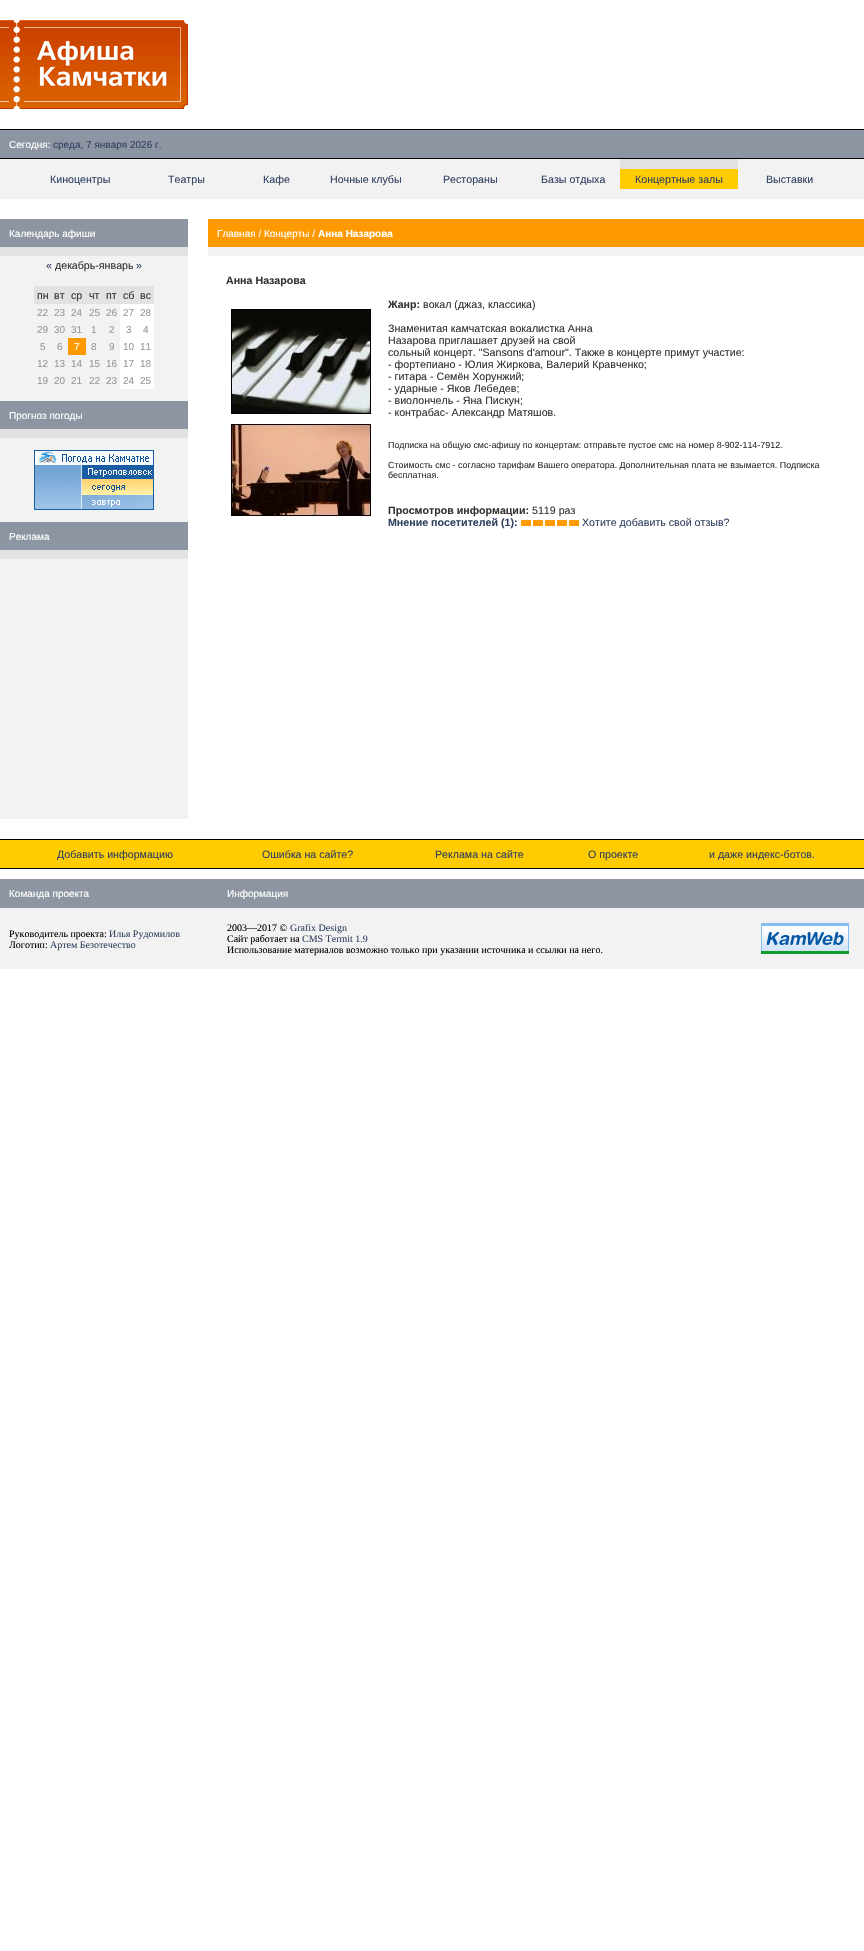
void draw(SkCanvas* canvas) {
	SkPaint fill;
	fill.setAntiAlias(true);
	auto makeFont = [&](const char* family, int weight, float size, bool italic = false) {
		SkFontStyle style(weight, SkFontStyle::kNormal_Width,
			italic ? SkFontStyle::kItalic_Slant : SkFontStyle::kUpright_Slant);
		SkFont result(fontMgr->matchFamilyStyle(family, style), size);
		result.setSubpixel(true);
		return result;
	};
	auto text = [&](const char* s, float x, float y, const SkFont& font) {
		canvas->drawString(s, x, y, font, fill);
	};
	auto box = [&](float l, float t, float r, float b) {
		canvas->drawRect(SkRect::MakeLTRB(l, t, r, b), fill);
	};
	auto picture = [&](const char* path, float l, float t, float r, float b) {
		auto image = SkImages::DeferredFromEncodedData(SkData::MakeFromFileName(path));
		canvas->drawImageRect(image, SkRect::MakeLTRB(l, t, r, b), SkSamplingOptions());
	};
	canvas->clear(0xFFFFFFFF);
	picture("image0.png", 0, 20, 188, 109);
	fill.setColor(0xFF000000);
	box(0, 129, 864, 130);
	fill.setColor(0xFF8D95A2);
	box(0, 130, 864, 158);
	fill.setColor(0xFF000000);
	box(0, 158, 864, 159);
	fill.setColor(0xFFF2F2F2);
	box(0, 159, 864, 199);
	fill.setColor(0xFFE2E2E2);
	box(620, 159, 738, 169);
	fill.setColor(0xFFFFCC00);
	box(620, 169, 738, 189);
	fill.setColor(0xFFF2F2F2);
	box(0, 256, 188, 819);
	fill.setColor(0xFF8D95A2);
	box(0, 219, 188, 247);
	fill.setColor(0xFFE2E2E2);
	box(0, 247, 188, 256);
	box(34, 286, 154, 304);
	fill.setColor(0xFFFFFFFF);
	box(120, 304, 154, 321);
	box(120, 321, 154, 338);
	fill.setColor(0xFFFF9900);
	box(68, 338, 86, 355);
	fill.setColor(0xFFFFFFFF);
	box(120, 338, 154, 355);
	box(120, 355, 154, 372);
	box(120, 372, 154, 389);
	fill.setColor(0xFF8D95A2);
	box(0, 401, 188, 429);
	fill.setColor(0xFFE2E2E2);
	box(0, 429, 188, 438);
	picture("image1.png", 34, 450, 154, 510);
	fill.setColor(0xFF8D95A2);
	box(0, 522, 188, 550);
	fill.setColor(0xFFE2E2E2);
	box(0, 550, 188, 559);
	fill.setColor(0xFFFF9900);
	box(208, 219, 864, 247);
	fill.setColor(0xFFF2F2F2);
	box(208, 247, 864, 256);
	picture("image2.png", 231, 309, 371, 414);
	picture("image3.png", 231, 424, 371, 516);
	picture("image4.png", 521, 520, 579, 526);
	fill.setColor(0xFF000000);
	box(0, 839, 864, 840);
	fill.setColor(0xFFFFCC00);
	box(0, 840, 864, 868);
	fill.setColor(0xFF000000);
	box(0, 868, 864, 869);
	fill.setColor(0xFF8D95A2);
	box(0, 879, 864, 908);
	fill.setColor(0xFFF2F2F2);
	box(0, 908, 864, 969);
	picture("image5.png", 761, 923, 849, 954);
	auto font1 = makeFont("Liberation Sans", 400, 10);
	fill.setColor(0xFFFFFFFF);
	text("Сегодня:", 9, 148, font1);
	fill.setColor(0xFF304160);
	text("среда, 7 января 2026 г.", 53, 148, font1);
	auto font2 = makeFont("Liberation Sans", 400, 10.65f);
	text("Киноцентры", 50, 183, font2);
	text("Театры", 168, 183, font2);
	text("Кафе", 263, 183, font2);
	text("Ночные клубы", 330, 183, font2);
	text("Рестораны", 443, 183, font2);
	text("Базы отдыха", 541, 183, font2);
	text("Концертные залы", 635, 183, font2);
	text("Выставки", 766, 183, font2);
	fill.setColor(0xFFFFFFFF);
	text("Календарь афиши", 9, 237, font1);
	fill.setColor(0xFF304160);
	text("«", 46, 269, font2);
	fill.setColor(0xFF333333);
	text("декабрь-январь", 55, 269, font2);
	fill.setColor(0xFF304160);
	text("»", 136, 269, font2);
	fill.setColor(0xFF333333);
	text("пн", 37, 299, font2);
	text("вт", 54, 299, font2);
	text("ср", 71, 299, font2);
	text("чт", 89, 299, font2);
	text("пт", 106, 299, font2);
	text("сб", 123, 299, font2);
	text("вс", 140, 299, font2);
	fill.setColor(0xFF999999);
	text("22", 37, 316, font1);
	text("23", 54, 316, font1);
	text("24", 71, 316, font1);
	text("25", 89, 316, font1);
	text("26", 106, 316, font1);
	text("27", 123, 316, font1);
	text("28", 140, 316, font1);
	text("29", 37, 333, font1);
	text("30", 54, 333, font1);
	text("31", 71, 333, font1);
	text("1", 91, 333, font1);
	text("2", 109, 333, font1);
	text("3", 126, 333, font1);
	text("4", 143, 333, font1);
	text("5", 40, 350, font1);
	text("6", 57, 350, font1);
	fill.setColor(0xFFFFFFFF);
	text("7", 74, 350, font1);
	fill.setColor(0xFF999999);
	text("8", 91, 350, font1);
	text("9", 109, 350, font1);
	text("10", 123, 350, font1);
	text("11", 140, 350, font1);
	text("12", 37, 367, font1);
	text("13", 54, 367, font1);
	text("14", 71, 367, font1);
	text("15", 89, 367, font1);
	text("16", 106, 367, font1);
	text("17", 123, 367, font1);
	text("18", 140, 367, font1);
	text("19", 37, 384, font1);
	text("20", 54, 384, font1);
	text("21", 71, 384, font1);
	text("22", 89, 384, font1);
	text("23", 106, 384, font1);
	text("24", 123, 384, font1);
	text("25", 140, 384, font1);
	fill.setColor(0xFFFFFFFF);
	text("Прогноз погоды", 9, 419, font1);
	text("Реклама", 9, 540, font1);
	text("Главная / Концерты /", 217, 237, font1);
	auto font3 = makeFont("Liberation Sans", 700, 10);
	text("Анна Назарова", 318, 237, font3);
	auto font4 = makeFont("Liberation Sans", 700, 10.65f);
	fill.setColor(0xFF333333);
	text("Анна Назарова", 226, 284, font4);
	text("Жанр:", 388, 308, font4);
	text("вокал (джаз, классика)", 423, 308, font2);
	text("Знаменитая камчатская вокалистка Анна", 388, 332, font2);
	text("Назарова приглашает друзей на свой", 388, 344, font2);
	text("сольный концерт. \"Sansons d'amour\". Также в концерте примут участие:", 388, 356, font2);
	text("- фортепиано - Юлия Жиркова, Валерий Кравченко;", 388, 368, font2);
	text("- гитара - Семён Хорунжий;", 388, 380, font2);
	text("- ударные - Яков Лебедев;", 388, 392, font2);
	text("- виолончель - Яна Пискун;", 388, 404, font2);
	text("- контрабас- Александр Матяшов.", 388, 416, font2);
	auto font5 = makeFont("Liberation Sans", 400, 8.9f);
	text("Подписка на общую смс-афишу по концертам: отправьте пустое смс на номер 8-902-114-7912.", 388, 448, font5);
	text("Стоимость смс - согласно тарифам Вашего оператора. Дополнительная плата не взымается. Подписка", 388, 468, font5);
	text("бесплатная.", 388, 478, font5);
	text("Просмотров информации:", 388, 514, font4);
	text("5119 раз", 532, 514, font2);
	fill.setColor(0xFF304160);
	text("Мнение посетителей (1):", 388, 526, font4);
	text("Хотите добавить свой отзыв?", 582, 526, font2);
	text("Добавить информацию", 57, 858, font2);
	text("Ошибка на сайте?", 262, 858, font2);
	text("Реклама на сайте", 435, 858, font2);
	text("О проекте", 588, 858, font2);
	text("и даже индекс-ботов.", 709, 858, font2);
	fill.setColor(0xFFFFFFFF);
	text("Команда проекта", 9, 897, font1);
	text("Информация", 227, 897, font1);
	auto font6 = makeFont("Liberation Serif", 400, 10);
	fill.setColor(0xFF000000);
	text("Руководитель проекта:", 9, 937, font6);
	fill.setColor(0xFF304160);
	text("Илья Рудомилов", 109, 937, font6);
	fill.setColor(0xFF000000);
	text("Логотип:", 9, 948, font6);
	fill.setColor(0xFF304160);
	text("Артем Безотечество", 50, 948, font6);
	fill.setColor(0xFF000000);
	text("2003—2017 ©", 227, 931, font6);
	fill.setColor(0xFF304160);
	text("Grafix Design", 290, 931, font6);
	fill.setColor(0xFF000000);
	text("Сайт работает на", 227, 942, font6);
	fill.setColor(0xFF304160);
	text("CMS Termit 1.9", 302, 942, font6);
	fill.setColor(0xFF000000);
	text("Использование материалов возможно только при указании источника и ссылки на него.", 227, 953, font6);
}
